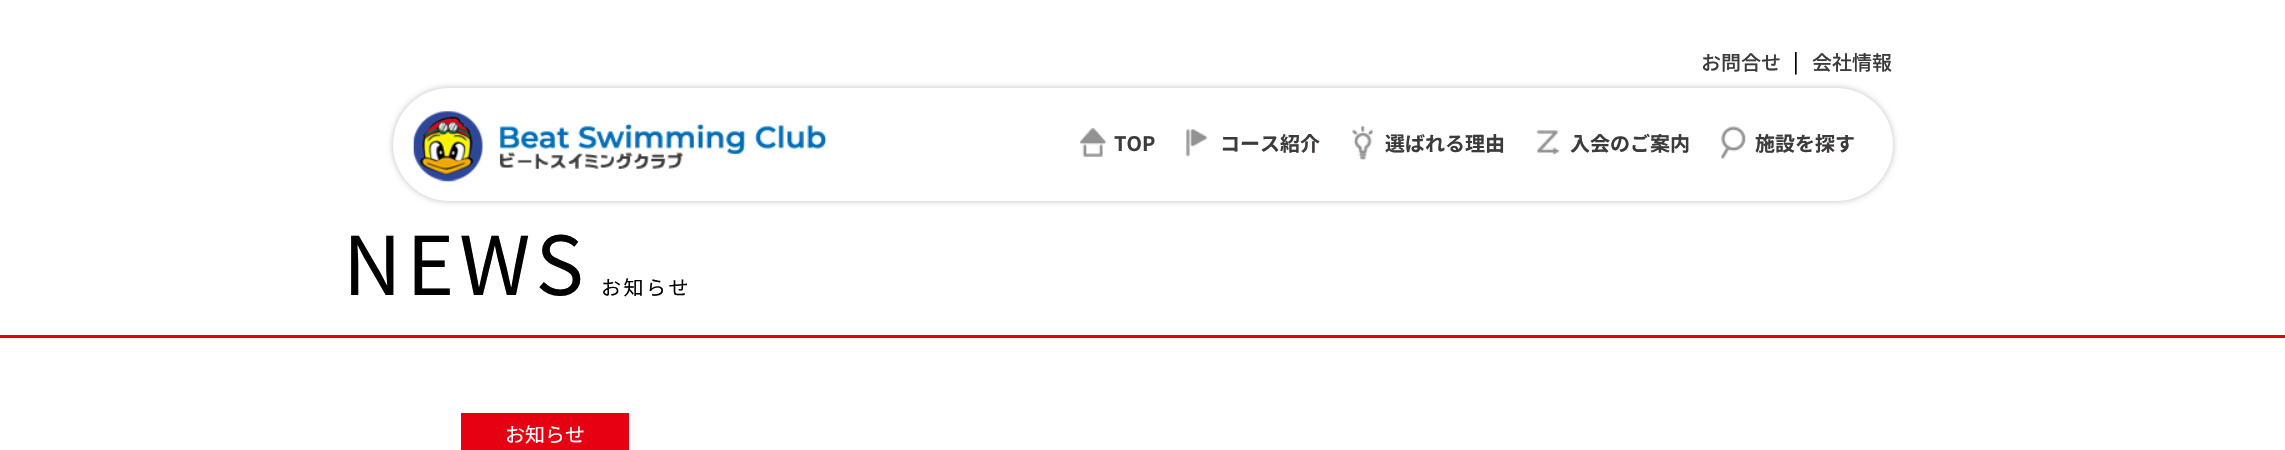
void draw(SkCanvas* canvas) {
	SkPaint fill;
	fill.setAntiAlias(true);
	auto makeFont = [&](const char* family, int weight, float size, bool italic = false) {
		SkFontStyle style(weight, SkFontStyle::kNormal_Width,
			italic ? SkFontStyle::kItalic_Slant : SkFontStyle::kUpright_Slant);
		SkFont result(fontMgr->matchFamilyStyle(family, style), size);
		result.setSubpixel(true);
		return result;
	};
	auto text = [&](const char* s, float x, float y, const SkFont& font) {
		canvas->drawString(s, x, y, font, fill);
	};
	auto spacedText = [&](const char* s, float x, float y, const SkFont& font, const SkPaint& ink, float letter, float word) {
		std::vector<SkGlyphID> glyphs(font.countText(s, strlen(s), SkTextEncoding::kUTF8));
		std::vector<float> xs(glyphs.size());
		font.textToGlyphs(s, strlen(s), SkTextEncoding::kUTF8, glyphs);
		font.getXPos(glyphs, xs, x);
		float extra = 0;
		for (size_t i = 0; i < glyphs.size(); i++) {
			xs[i] += extra;
			extra += letter + word * (glyphs[i] == font.unicharToGlyph(' '));
		}
		canvas->drawTextBlob(SkTextBlob::MakeFromPosHGlyphs(glyphs, xs, y, font), 0, 0, ink);
	};
	auto box = [&](float l, float t, float r, float b) {
		canvas->drawRect(SkRect::MakeLTRB(l, t, r, b), fill);
	};
	auto roundBox = [&](float l, float t, float r, float b, float radius) {
		canvas->drawRoundRect(SkRect::MakeLTRB(l, t, r, b), radius, radius, fill);
	};
	auto picture = [&](const char* path, float l, float t, float r, float b) {
		auto image = SkImages::DeferredFromEncodedData(SkData::MakeFromFileName(path));
		canvas->drawImageRect(image, SkRect::MakeLTRB(l, t, r, b), SkSamplingOptions());
	};
	canvas->clear(0xFFFFFFFF);
	fill.setColor(0x40000000);
	fill.setMaskFilter(SkMaskFilter::MakeBlur(kNormal_SkBlurStyle, 3));
	canvas->drawRoundRect(SkRect::MakeLTRB(393, 88, 1893, 201), 56.5f, 56.5f, fill);
	fill.setMaskFilter(nullptr);
	fill.setColor(0xFFFFFFFF);
	roundBox(393, 88, 1893, 201, 56.5f);
	picture("image0.png", 413, 111, 827, 182);
	picture("image1.png", 1080, 128, 1107, 157);
	picture("image2.png", 1186, 128, 1208, 157);
	picture("image3.png", 1352, 125, 1373, 160);
	picture("image4.png", 1536, 130, 1560, 155);
	picture("image5.png", 1721, 126, 1746, 159);
	fill.setColor(0xFFE60012);
	box(0, 335, 2285, 338);
	box(461, 413, 629, 450);
	auto font1 = makeFont("Noto Sans JP", 500, 20);
	fill.setColor(0xFF3E3A39);
	text("お問合せ", 1701, 70, font1);
	fill.setColor(0xFF000000);
	text("|", 1793, 69, font1);
	fill.setColor(0xFF3E3A39);
	text("会社情報", 1812, 70, font1);
	auto font2 = makeFont("Noto Sans JP", 700, 20);
	text("TOP", 1114, 151, font2);
	text("コース紹介", 1220, 151, font2);
	text("選ばれる理由", 1385, 151, font2);
	text("入会のご案内", 1570, 151, font2);
	text("施設を探す", 1755, 151, font2);
	auto font3 = makeFont("Noto Sans JP", 400, 81);
	fill.setColor(0xFF000000);
	spacedText("NEWS", 343, 295, font3, fill, 5, 0);
	auto font4 = makeFont("Noto Sans JP", 400, 20);
	spacedText("お知らせ", 601, 295, font4, fill, 2.5f, 0);
	fill.setColor(0xFFFFFFFF);
	text("お知らせ", 505, 442, font4);
}
